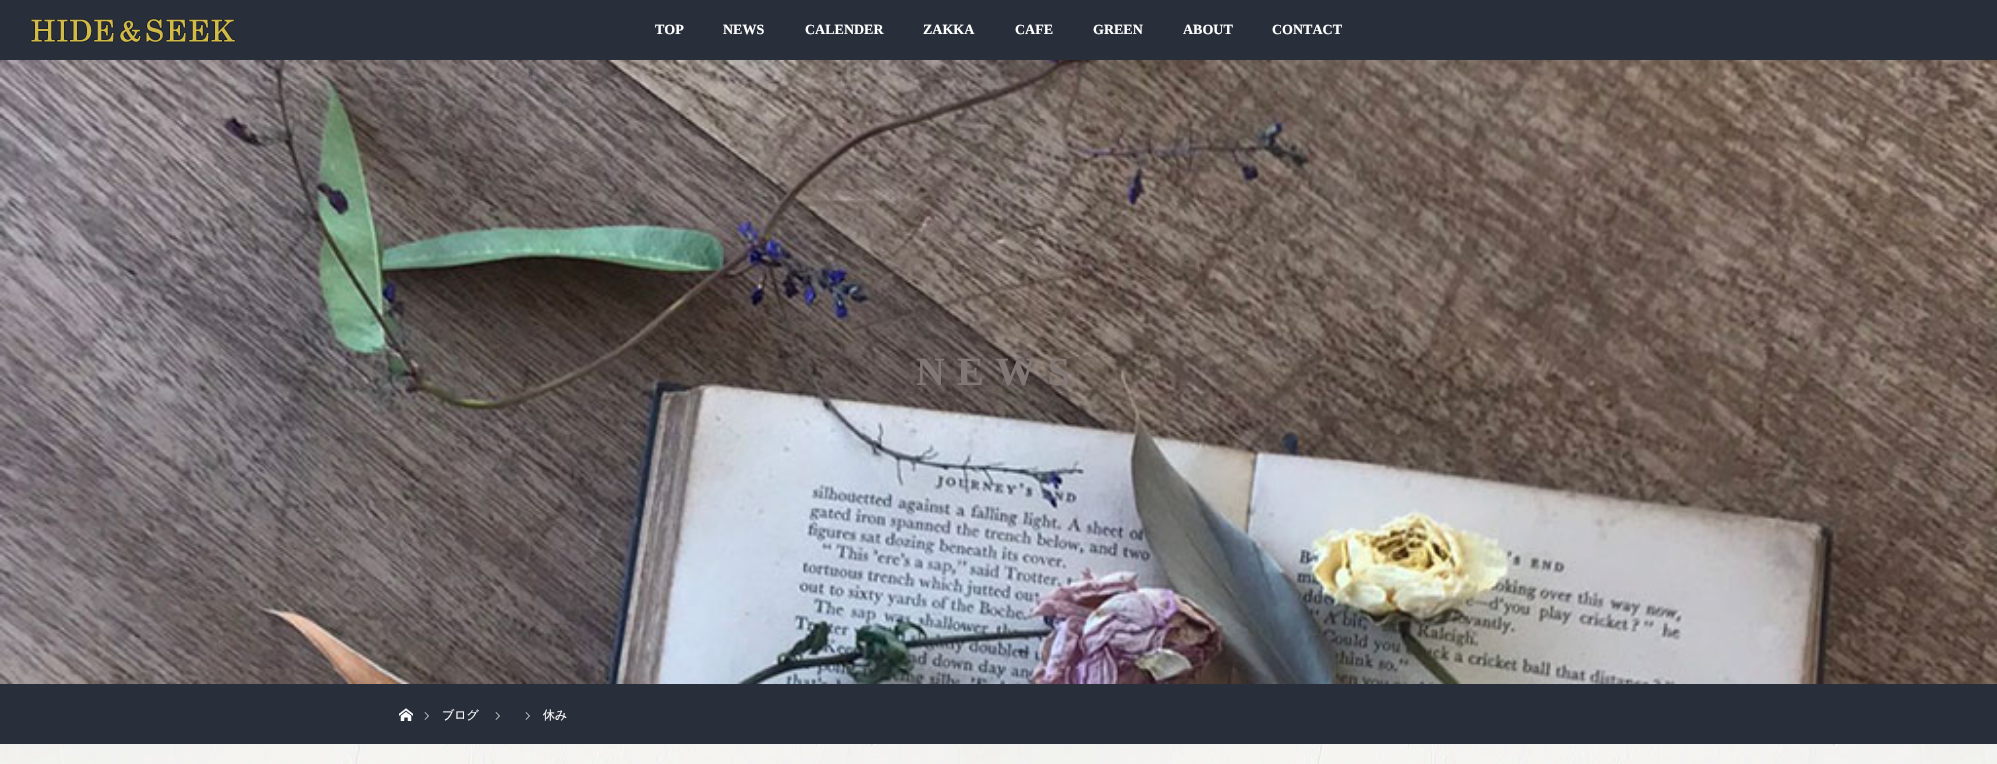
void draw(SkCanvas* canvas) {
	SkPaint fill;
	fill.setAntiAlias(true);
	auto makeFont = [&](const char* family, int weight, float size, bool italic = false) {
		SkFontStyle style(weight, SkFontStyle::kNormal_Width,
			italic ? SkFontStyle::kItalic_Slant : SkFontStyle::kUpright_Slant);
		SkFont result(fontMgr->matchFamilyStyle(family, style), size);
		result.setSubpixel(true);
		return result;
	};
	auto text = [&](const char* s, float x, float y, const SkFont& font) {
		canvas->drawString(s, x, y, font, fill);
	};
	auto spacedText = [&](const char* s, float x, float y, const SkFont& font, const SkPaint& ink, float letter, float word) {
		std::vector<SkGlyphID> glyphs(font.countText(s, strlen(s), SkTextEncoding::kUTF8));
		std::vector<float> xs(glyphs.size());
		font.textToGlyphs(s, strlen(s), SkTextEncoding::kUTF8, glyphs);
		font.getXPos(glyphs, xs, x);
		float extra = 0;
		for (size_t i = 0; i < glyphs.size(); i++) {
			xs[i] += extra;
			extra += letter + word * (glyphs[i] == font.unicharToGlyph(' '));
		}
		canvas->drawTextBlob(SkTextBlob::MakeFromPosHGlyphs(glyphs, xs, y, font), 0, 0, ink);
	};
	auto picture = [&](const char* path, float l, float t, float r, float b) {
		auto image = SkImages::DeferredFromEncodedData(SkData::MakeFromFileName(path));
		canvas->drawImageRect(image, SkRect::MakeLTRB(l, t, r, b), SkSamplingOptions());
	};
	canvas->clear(0xFF282F3B);
	picture("image0.png", 30, 18, 236, 43);
	picture("image1.png", 0, 744, 1997, 764);
	picture("image2.png", 0, 60, 1997, 684);
	picture("image3.png", 399, 708, 413, 721);
	picture("image4.png", 424, 712, 429, 720);
	picture("image4.png", 495, 712, 500, 720);
	picture("image4.png", 525, 712, 530, 720);
	auto font1 = makeFont("Liberation Serif", 700, 14);
	fill.setColor(0xFFFFFFFF);
	text("TOP", 655, 34, font1);
	text("NEWS", 723, 34, font1);
	text("CALENDER", 805, 34, font1);
	text("ZAKKA", 923, 34, font1);
	text("CAFE", 1015, 34, font1);
	text("GREEN", 1093, 34, font1);
	text("ABOUT", 1183, 34, font1);
	text("CONTACT", 1272, 34, font1);
	auto font2 = makeFont("Liberation Serif", 700, 40);
	fill.setColor(0xFF827977);
	spacedText("NEWS", 916, 385, font2, fill, 12, 0);
	auto font3 = makeFont("WenQuanYi Zen Hei", 500, 12);
	fill.setColor(0xFFFFFFFF);
	text("ブログ", 442, 719, font3);
	text("休み", 543, 719, font3);
}
